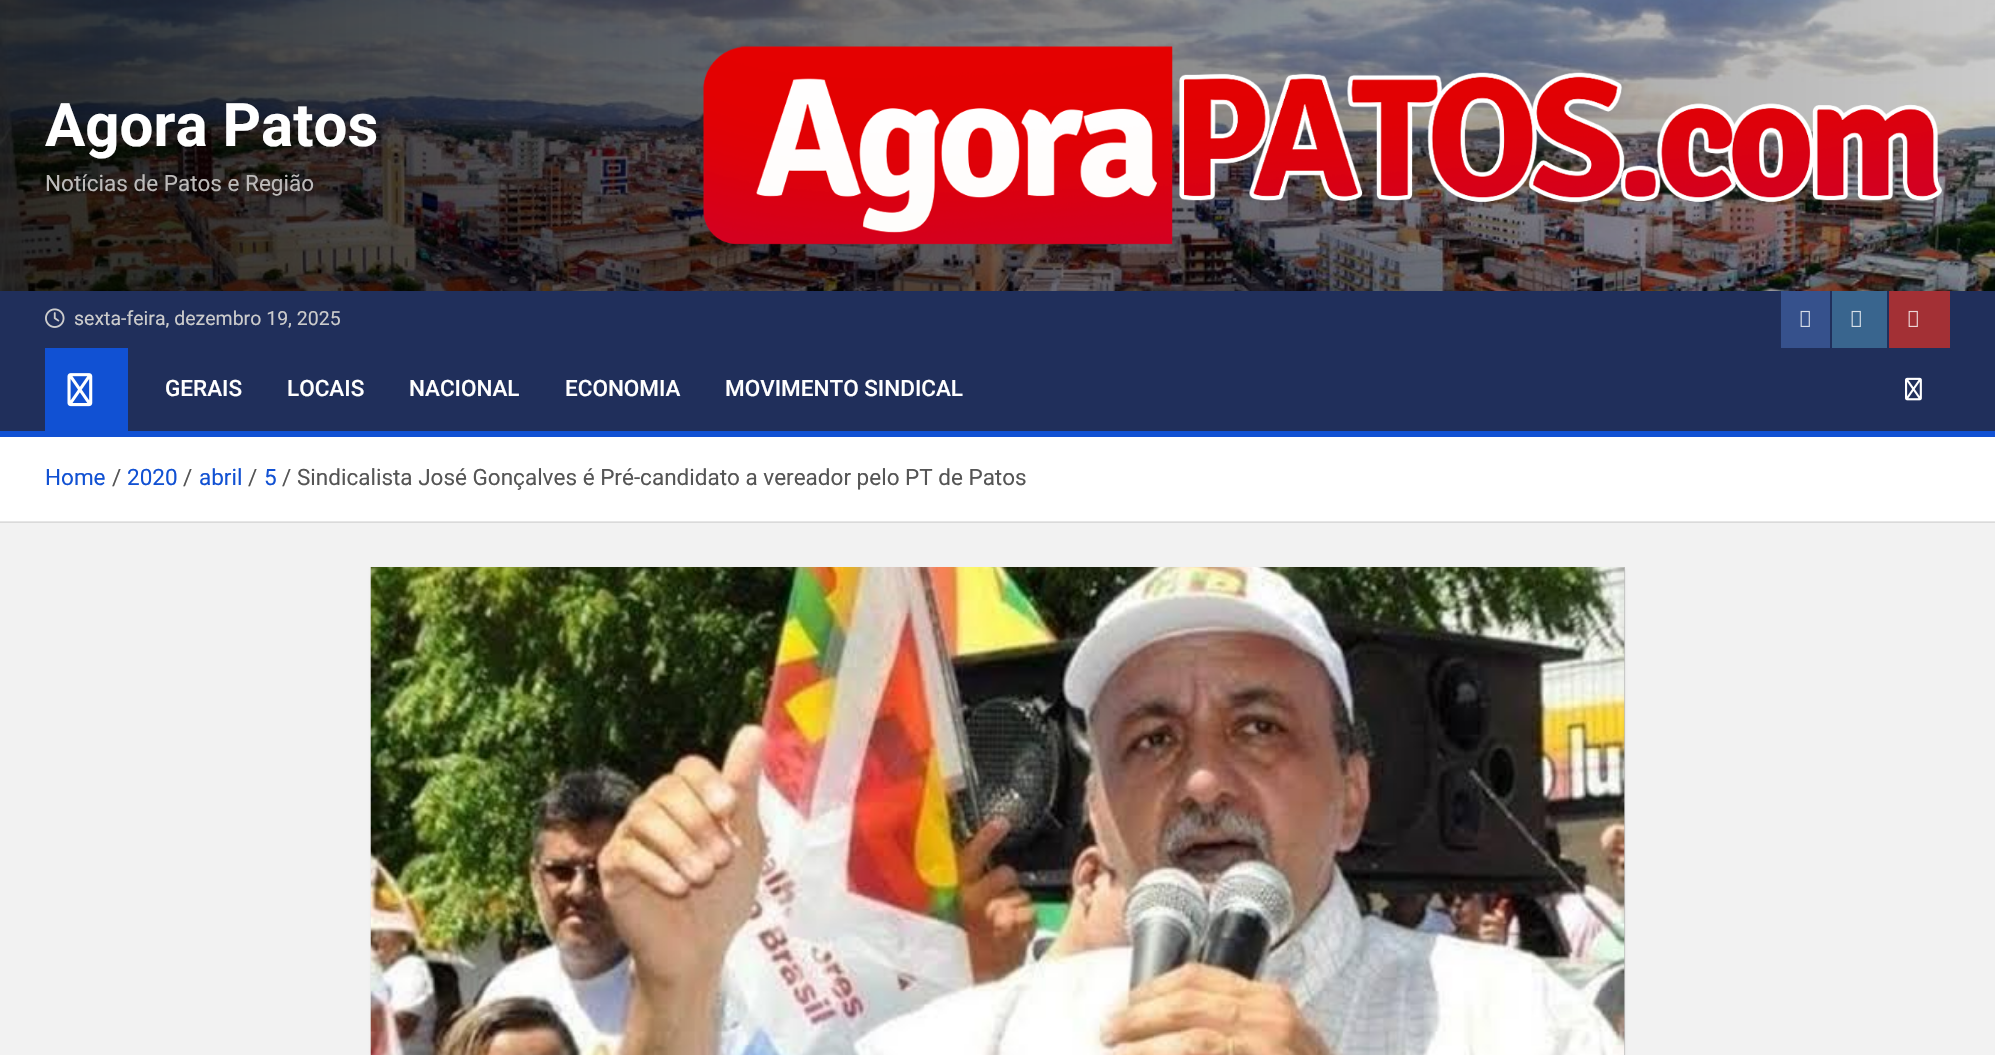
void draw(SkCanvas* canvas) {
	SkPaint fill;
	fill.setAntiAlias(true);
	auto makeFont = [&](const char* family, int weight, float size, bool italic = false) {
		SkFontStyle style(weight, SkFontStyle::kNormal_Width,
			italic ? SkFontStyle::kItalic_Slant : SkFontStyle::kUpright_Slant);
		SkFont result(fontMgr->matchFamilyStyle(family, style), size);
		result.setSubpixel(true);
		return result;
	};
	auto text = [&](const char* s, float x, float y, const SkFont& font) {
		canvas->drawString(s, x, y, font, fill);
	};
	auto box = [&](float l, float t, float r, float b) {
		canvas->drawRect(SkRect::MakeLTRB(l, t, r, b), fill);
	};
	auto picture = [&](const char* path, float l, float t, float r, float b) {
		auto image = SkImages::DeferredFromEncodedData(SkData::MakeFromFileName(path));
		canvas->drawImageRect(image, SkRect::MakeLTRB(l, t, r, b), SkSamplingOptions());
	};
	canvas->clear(0xFFF2F2F2);
	fill.setColor(0xFFDADADA);
	box(0, 522, 1995, 523);
	picture("image0.png", 0, 0, 1995, 291);
	picture("image1.png", 703, 46, 1943, 245);
	fill.setColor(0xFF202F5B);
	box(0, 291, 1995, 431);
	picture("image2.png", 45, 308, 65, 328);
	fill.setColor(0xFF36518C);
	box(1781, 291, 1830, 348);
	picture("image3.png", 1800, 310, 1810, 327);
	fill.setColor(0xFF39658E);
	box(1832, 291, 1887, 348);
	picture("image4.png", 1851, 310, 1861, 327);
	fill.setColor(0xFFA33035);
	box(1889, 291, 1950, 348);
	picture("image5.png", 1908, 310, 1918, 327);
	fill.setColor(0xFF1151D3);
	box(0, 431, 1995, 437);
	box(45, 348, 128, 431);
	picture("image6.png", 67, 373, 93, 407);
	picture("image7.png", 1905, 377, 1922, 401);
	fill.setColor(0xFFFFFFFF);
	box(0, 437, 1995, 521);
	fill.setColor(0xFFE6E6E6);
	box(0, 521, 1995, 522);
	fill.setColor(0x1A000000);
	fill.setMaskFilter(SkMaskFilter::MakeBlur(kNormal_SkBlurStyle, 1));
	canvas->drawRect(SkRect::MakeLTRB(371, 569, 1625, 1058), fill);
	fill.setMaskFilter(nullptr);
	fill.setColor(0xFFBCBCBC);
	box(1624, 567, 1625, 1055);
	picture("image8.png", 370, 567, 1625, 1055);
	auto font1 = makeFont("Roboto", 700, 60);
	fill.setColor(0xFFFFFFFF);
	text("Agora Patos", 45, 146, font1);
	auto font2 = makeFont("Roboto", 400, 22.5f);
	fill.setColor(0xFFBDBBBA);
	text("Notícias de Patos e Região", 45, 191, font2);
	auto font3 = makeFont("Roboto", 400, 19.5f);
	fill.setColor(0xFFCCCCCC);
	text("sexta-feira, dezembro 19, 2025", 74, 325, font3);
	auto font4 = makeFont("Roboto", 500, 22.5f);
	fill.setColor(0xFFFFFFFF);
	text("GERAIS", 165, 396, font4);
	text("LOCAIS", 287, 396, font4);
	text("NACIONAL", 409, 396, font4);
	text("ECONOMIA", 565, 396, font4);
	text("MOVIMENTO SINDICAL", 725, 396, font4);
	fill.setColor(0xFF1151D3);
	text("Home", 45, 485, font2);
	fill.setColor(0xFF555555);
	text("/", 112, 485, font2);
	fill.setColor(0xFF1151D3);
	text("2020", 127, 485, font2);
	fill.setColor(0xFF555555);
	text("/", 183, 485, font2);
	fill.setColor(0xFF1151D3);
	text("abril", 199, 485, font2);
	fill.setColor(0xFF555555);
	text("/", 248, 485, font2);
	fill.setColor(0xFF1151D3);
	text("5", 264, 485, font2);
	fill.setColor(0xFF555555);
	text("/", 282, 485, font2);
	text("Sindicalista José Gonçalves é Pré-candidato a vereador pelo PT de Patos", 297, 485, font2);
}
